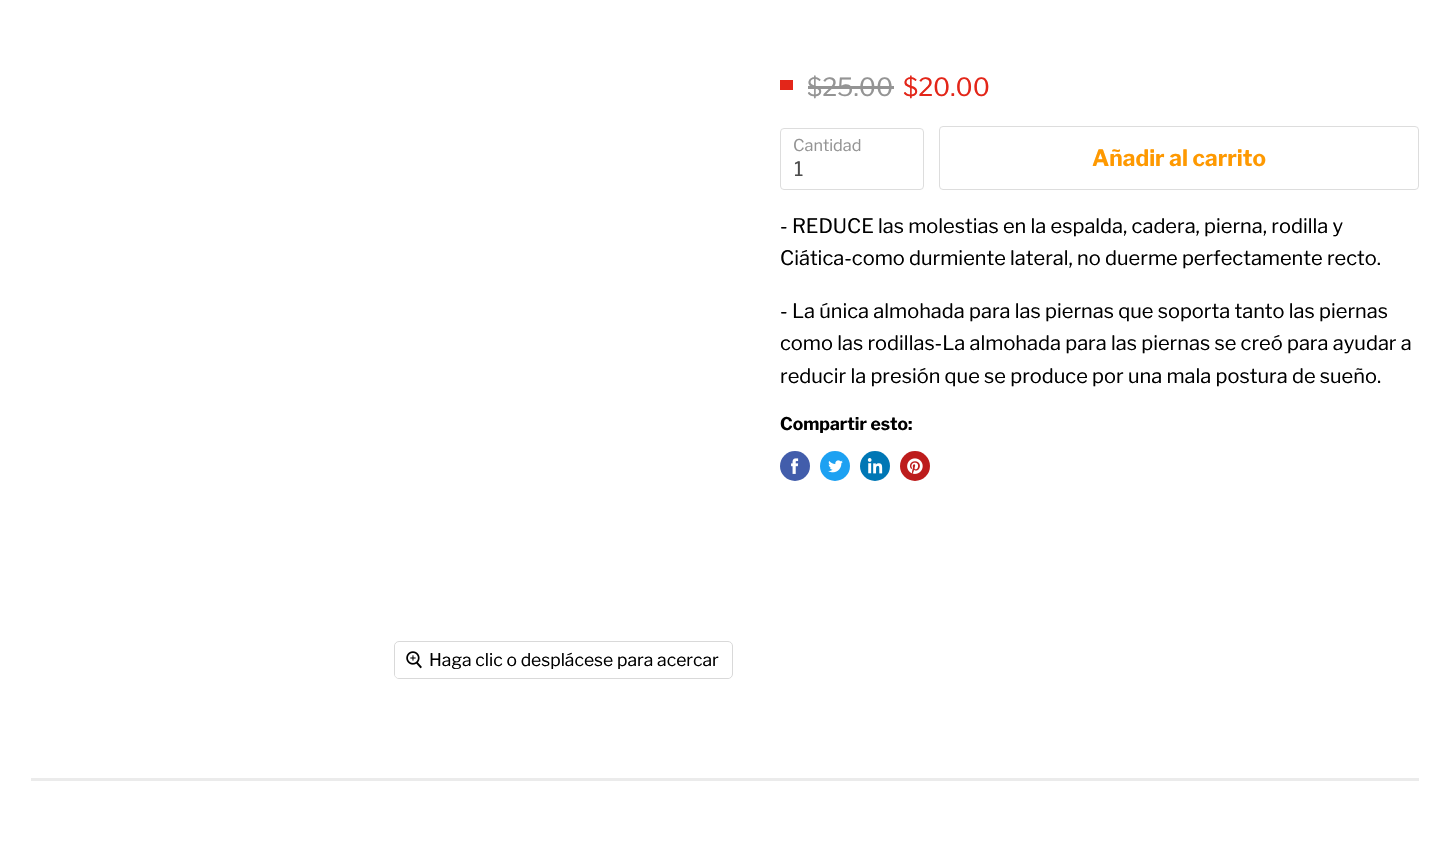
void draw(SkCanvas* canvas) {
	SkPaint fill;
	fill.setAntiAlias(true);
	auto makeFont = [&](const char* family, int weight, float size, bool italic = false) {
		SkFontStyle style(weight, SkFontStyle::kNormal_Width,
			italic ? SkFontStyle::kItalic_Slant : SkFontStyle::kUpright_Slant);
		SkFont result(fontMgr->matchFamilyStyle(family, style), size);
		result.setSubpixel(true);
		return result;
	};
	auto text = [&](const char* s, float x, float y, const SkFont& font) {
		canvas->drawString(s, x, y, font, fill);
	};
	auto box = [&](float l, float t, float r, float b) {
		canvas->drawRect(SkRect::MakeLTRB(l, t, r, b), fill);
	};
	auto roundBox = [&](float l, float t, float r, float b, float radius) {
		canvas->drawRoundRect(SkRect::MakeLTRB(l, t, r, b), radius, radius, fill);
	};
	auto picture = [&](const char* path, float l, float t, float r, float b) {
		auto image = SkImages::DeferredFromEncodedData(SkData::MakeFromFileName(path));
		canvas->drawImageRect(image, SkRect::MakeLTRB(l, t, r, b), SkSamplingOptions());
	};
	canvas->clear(0xFFFFFFFF);
	fill.setColor(0xFFE32619);
	box(780, 80, 793, 90);
	fill.setColor(0xFF949494);
	box(808, 86, 894, 89);
	fill.setStyle(SkPaint::kStroke_Style);
	fill.setStrokeWidth(1);
	fill.setColor(0xFFDDDDDD);
	canvas->drawRoundRect(SkRect::MakeLTRB(780.5f, 128.5f, 923.5f, 189.5f), 3.5f, 3.5f, fill);
	canvas->drawRoundRect(SkRect::MakeLTRB(939.5f, 126.5f, 1418.5f, 189.5f), 3.5f, 3.5f, fill);
	fill.setStyle(SkPaint::kFill_Style);
	fill.setColor(0xFF425DAB);
	canvas->drawCircle(795, 466, 15, fill);
	picture("image0.png", 791, 458, 799, 474);
	fill.setColor(0xFF1DA1F2);
	canvas->drawCircle(835, 466, 15, fill);
	picture("image1.png", 828, 460, 843, 473);
	fill.setColor(0xFF0077B5);
	canvas->drawCircle(875, 466, 15, fill);
	picture("image2.png", 867, 458, 883, 474);
	fill.setColor(0xFFBD1C1C);
	canvas->drawCircle(915, 466, 15, fill);
	picture("image3.png", 907, 458, 923, 474);
	fill.setStyle(SkPaint::kStroke_Style);
	fill.setColor(0xFFD9D9D9);
	canvas->drawRoundRect(SkRect::MakeLTRB(394.5f, 641.5f, 732.5f, 678.5f), 4.5f, 4.5f, fill);
	fill.setStyle(SkPaint::kFill_Style);
	fill.setColor(0xE6FFFFFF);
	roundBox(395, 643, 731, 678, 4);
	picture("image4.png", 406, 651, 422, 669);
	fill.setColor(0x29808080);
	box(31, 778, 1419, 781);
	auto font1 = makeFont("Libre Franklin", 400, 25);
	fill.setColor(0xFF949494);
	text("$25.00", 807, 96, font1);
	fill.setColor(0xFFE32619);
	text("$20.00", 903, 96, font1);
	auto font2 = makeFont("Libre Franklin", 400, 16.25f);
	fill.setColor(0xFF949494);
	text("Cantidad", 793, 151, font2);
	auto font3 = makeFont("Libre Franklin", 400, 20);
	fill.setColor(0xFF4D4D4D);
	text("1", 794, 176, font3);
	auto font4 = makeFont("Libre Franklin", 700, 22.5f);
	fill.setColor(0xFFFE9901);
	text("Añadir al carrito", 1092, 166, font4);
	fill.setColor(0xFF000000);
	text("- REDUCE las molestias en la espalda, cadera, pierna, rodilla y", 780, 233, font3);
	text("Ciática-como durmiente lateral, no duerme perfectamente recto.", 780, 265, font3);
	text("- La única almohada para las piernas que soporta tanto las piernas", 780, 318, font3);
	text("como las rodillas-La almohada para las piernas se creó para ayudar a", 780, 350, font3);
	text("reducir la presión que se produce por una mala postura de sueño.", 780, 383, font3);
	auto font5 = makeFont("Libre Franklin", 700, 17.5f);
	text("Compartir esto:", 780, 430, font5);
	auto font6 = makeFont("Libre Franklin", 400, 17.5f);
	text("Haga clic o desplácese para acercar", 429, 666, font6);
}
